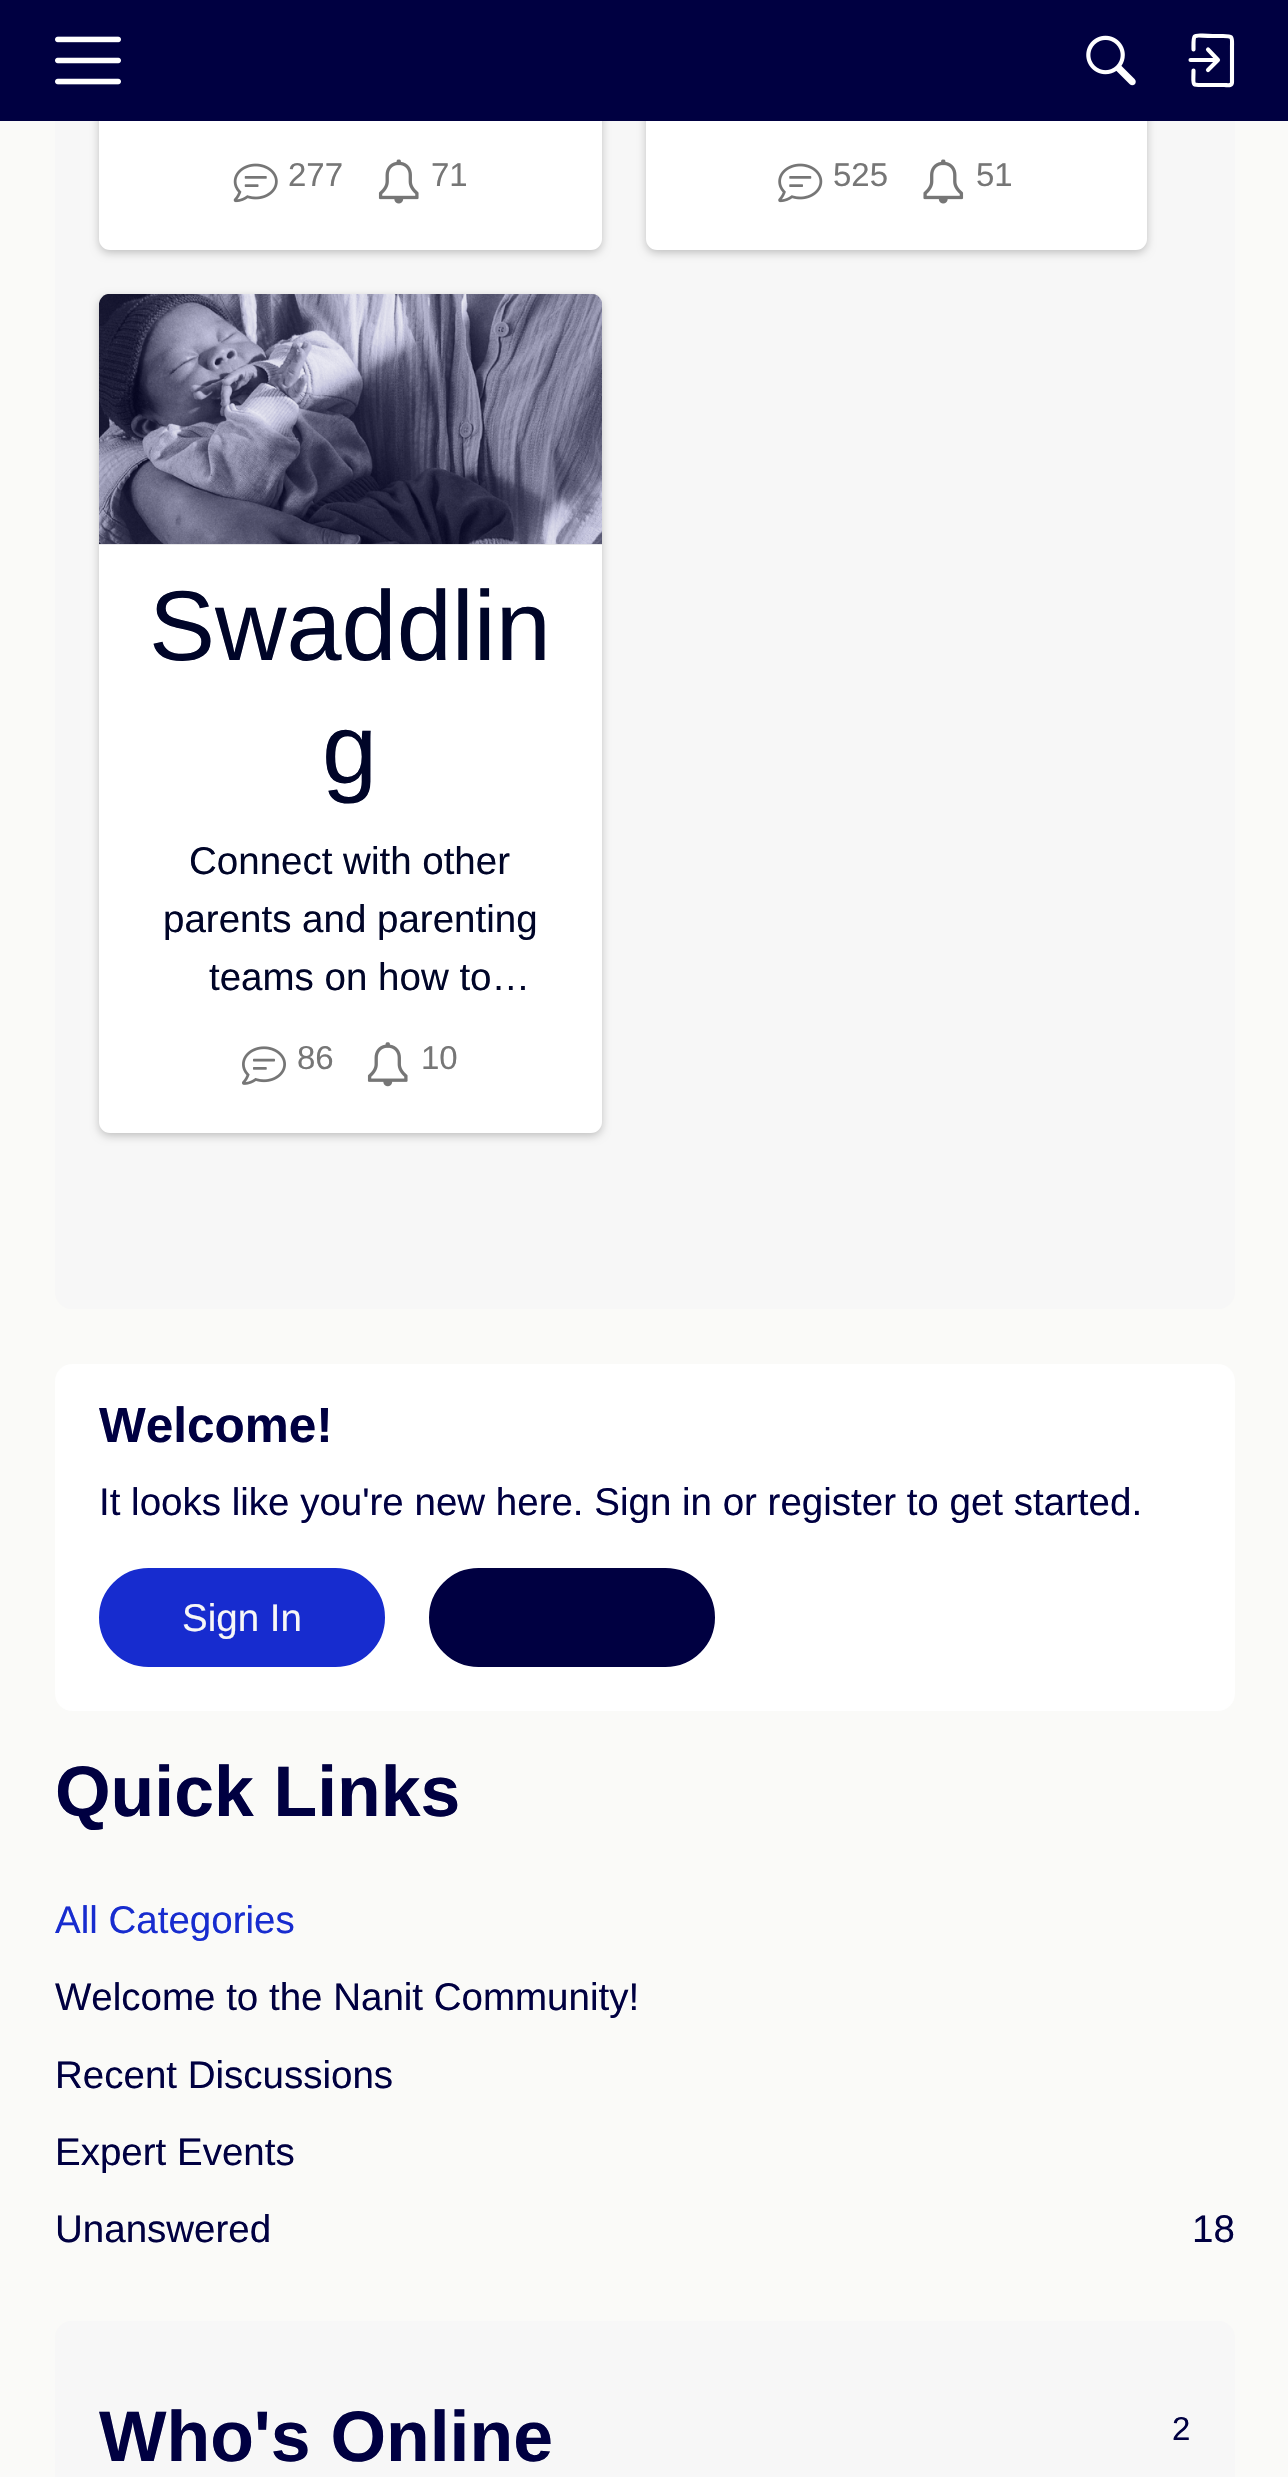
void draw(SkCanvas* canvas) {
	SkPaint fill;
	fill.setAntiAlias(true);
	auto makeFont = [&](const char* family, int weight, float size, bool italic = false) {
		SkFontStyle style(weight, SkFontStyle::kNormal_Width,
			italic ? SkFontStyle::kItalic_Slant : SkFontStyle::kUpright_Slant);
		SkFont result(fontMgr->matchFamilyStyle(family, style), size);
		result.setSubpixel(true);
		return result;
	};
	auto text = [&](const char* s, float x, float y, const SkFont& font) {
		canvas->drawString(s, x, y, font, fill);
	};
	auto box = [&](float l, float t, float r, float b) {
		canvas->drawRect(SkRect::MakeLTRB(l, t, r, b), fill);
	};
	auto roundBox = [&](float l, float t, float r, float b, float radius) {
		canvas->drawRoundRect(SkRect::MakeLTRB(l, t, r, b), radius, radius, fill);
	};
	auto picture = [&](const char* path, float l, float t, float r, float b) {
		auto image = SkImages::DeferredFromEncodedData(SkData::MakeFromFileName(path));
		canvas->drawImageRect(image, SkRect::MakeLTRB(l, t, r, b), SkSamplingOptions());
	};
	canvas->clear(0xFFFAFAF8);
	fill.setColor(0xFFF7F7F7);
	roundBox(55, -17, 1235, 1309, 17);
	fill.setColor(0x38000000);
	fill.setMaskFilter(SkMaskFilter::MakeBlur(kNormal_SkBlurStyle, 4));
	canvas->drawRoundRect(SkRect::MakeLTRB(99, -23, 602, 253), 11, 11, fill);
	fill.setMaskFilter(nullptr);
	fill.setColor(0xFFFFFFFF);
	roundBox(99, -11, 602, 250, 11);
	fill.setColor(0x38000000);
	fill.setMaskFilter(SkMaskFilter::MakeBlur(kNormal_SkBlurStyle, 4));
	canvas->drawRoundRect(SkRect::MakeLTRB(646, -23, 1147, 253), 11, 11, fill);
	fill.setMaskFilter(nullptr);
	fill.setColor(0xFFFFFFFF);
	roundBox(646, -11, 1147, 250, 11);
	fill.setColor(0xFF000041);
	box(0, 0, 1288, 121);
	picture("image0.png", 55, 36, 121, 85);
	picture("image1.png", 1086, 35, 1136, 86);
	fill.setStyle(SkPaint::kStroke_Style);
	fill.setStrokeWidth(4.1f);
	fill.setStrokeCap(SkPaint::kRound_Cap);
	fill.setStrokeJoin(SkPaint::kRound_Join);
	fill.setColor(0xFFFFFFFF);
	canvas->drawPath(SkPathBuilder().moveTo(1208, 70).lineTo(1218, 60).lineTo(1208, 49.5f).detach(), fill);
	fill.setStrokeJoin(SkPaint::kMiter_Join);
	canvas->drawPath(SkPathBuilder().moveTo(1217, 60).lineTo(1190.5f, 60).detach(), fill);
	fill.setStrokeJoin(SkPaint::kRound_Join);
	canvas->drawPath(SkPathBuilder().moveTo(1193.5f, 49.5f).cubicTo(1193.5f, 31.5f, 1192, 36, 1212.5f, 36).lineTo(1223, 36).cubicTo(1233.5f, 36, 1232, 37, 1232, 47.5f).lineTo(1232, 82).cubicTo(1232, 86.5f, 1227.5f, 85, 1224, 85).lineTo(1207.5f, 85).cubicTo(1190.5f, 85, 1193.5f, 87, 1193.5f, 70.5f).detach(), fill);
	picture("image2.png", 233, 163, 278, 203);
	picture("image3.png", 378, 159, 419, 204);
	picture("image4.png", 778, 163, 823, 203);
	picture("image5.png", 923, 159, 964, 204);
	fill.setStyle(SkPaint::kFill_Style);
	fill.setColor(0x38000000);
	fill.setMaskFilter(SkMaskFilter::MakeBlur(kNormal_SkBlurStyle, 4));
	canvas->drawRoundRect(SkRect::MakeLTRB(99, 297, 602, 1136), 11, 11, fill);
	fill.setMaskFilter(nullptr);
	fill.setColor(0xFFFFFFFF);
	roundBox(99, 294, 602, 1133, 11);
	fill.setColor(0xFFE6E6E9);
	canvas->drawPath(SkPathBuilder().moveTo(110, 294).lineTo(591, 294).cubicTo(597, 294, 602, 299, 602, 305).lineTo(602, 545).lineTo(99, 545).lineTo(99, 305).cubicTo(99, 299, 104, 294, 110, 294).close().detach(), fill);
	picture("image6.png", 99, 294, 602, 544);
	picture("image7.png", 242, 1046, 286, 1085);
	picture("image8.png", 367, 1042, 408, 1087);
	fill.setColor(0xFFFFFFFF);
	roundBox(55, 1364, 1235, 1711, 17);
	fill.setColor(0xFF172CCF);
	canvas->drawRoundRect(SkRect::MakeLTRB(100.5f, 1569.5f, 383.5f, 1665.5f), 48, 48, fill);
	fill.setStyle(SkPaint::kStroke_Style);
	fill.setStrokeWidth(3);
	fill.setStrokeCap(SkPaint::kButt_Cap);
	fill.setStrokeJoin(SkPaint::kMiter_Join);
	canvas->drawRoundRect(SkRect::MakeLTRB(100.5f, 1569.5f, 383.5f, 1665.5f), 48, 48, fill);
	fill.setStyle(SkPaint::kFill_Style);
	fill.setColor(0xFF000041);
	canvas->drawRoundRect(SkRect::MakeLTRB(430.5f, 1569.5f, 713.5f, 1665.5f), 48, 48, fill);
	fill.setStyle(SkPaint::kStroke_Style);
	canvas->drawRoundRect(SkRect::MakeLTRB(430.5f, 1569.5f, 713.5f, 1665.5f), 48, 48, fill);
	fill.setStyle(SkPaint::kFill_Style);
	fill.setColor(0xFFF7F7F7);
	roundBox(55, 2321, 1235, 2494, 17);
	auto font1 = makeFont("Liberation Sans", 400, 33);
	fill.setColor(0xFF767676);
	text("277", 288, 186, font1);
	text("71", 431, 186, font1);
	text("525", 833, 186, font1);
	text("51", 976, 186, font1);
	auto font2 = makeFont("Liberation Sans", 400, 99);
	fill.setColor(0xFF000528);
	text("Swaddlin", 149, 660, font2);
	text("g", 322, 783, font2);
	auto font3 = makeFont("Liberation Sans", 400, 38.5f);
	text("Connect with other", 189, 874, font3);
	text("parents and parenting", 163, 932, font3);
	text("teams on how to…", 209, 990, font3);
	fill.setColor(0xFF767676);
	text("86", 297, 1069, font1);
	text("10", 421, 1069, font1);
	auto font4 = makeFont("Liberation Sans", 700, 49.5f);
	fill.setColor(0xFF000041);
	text("Welcome!", 99, 1442, font4);
	text("It looks like you're new here. Sign in or register to get started.", 99, 1515, font3);
	fill.setColor(0xFFF7F7F7);
	text("Sign In", 182, 1631, font3);
	auto font5 = makeFont("Liberation Sans", 700, 71.5f);
	fill.setColor(0xFF000041);
	text("Quick Links", 55, 1816, font5);
	fill.setColor(0xFF172CCF);
	text("All Categories", 55, 1933, font3);
	fill.setColor(0xFF000041);
	text("Welcome to the Nanit Community!", 55, 2010, font3);
	text("Recent Discussions", 55, 2088, font3);
	text("Expert Events", 55, 2165, font3);
	text("Unanswered", 55, 2242, font3);
	text("18", 1192, 2242, font3);
	text("Who's Online", 99, 2461, font5);
	text("2", 1172, 2440, font1);
}
